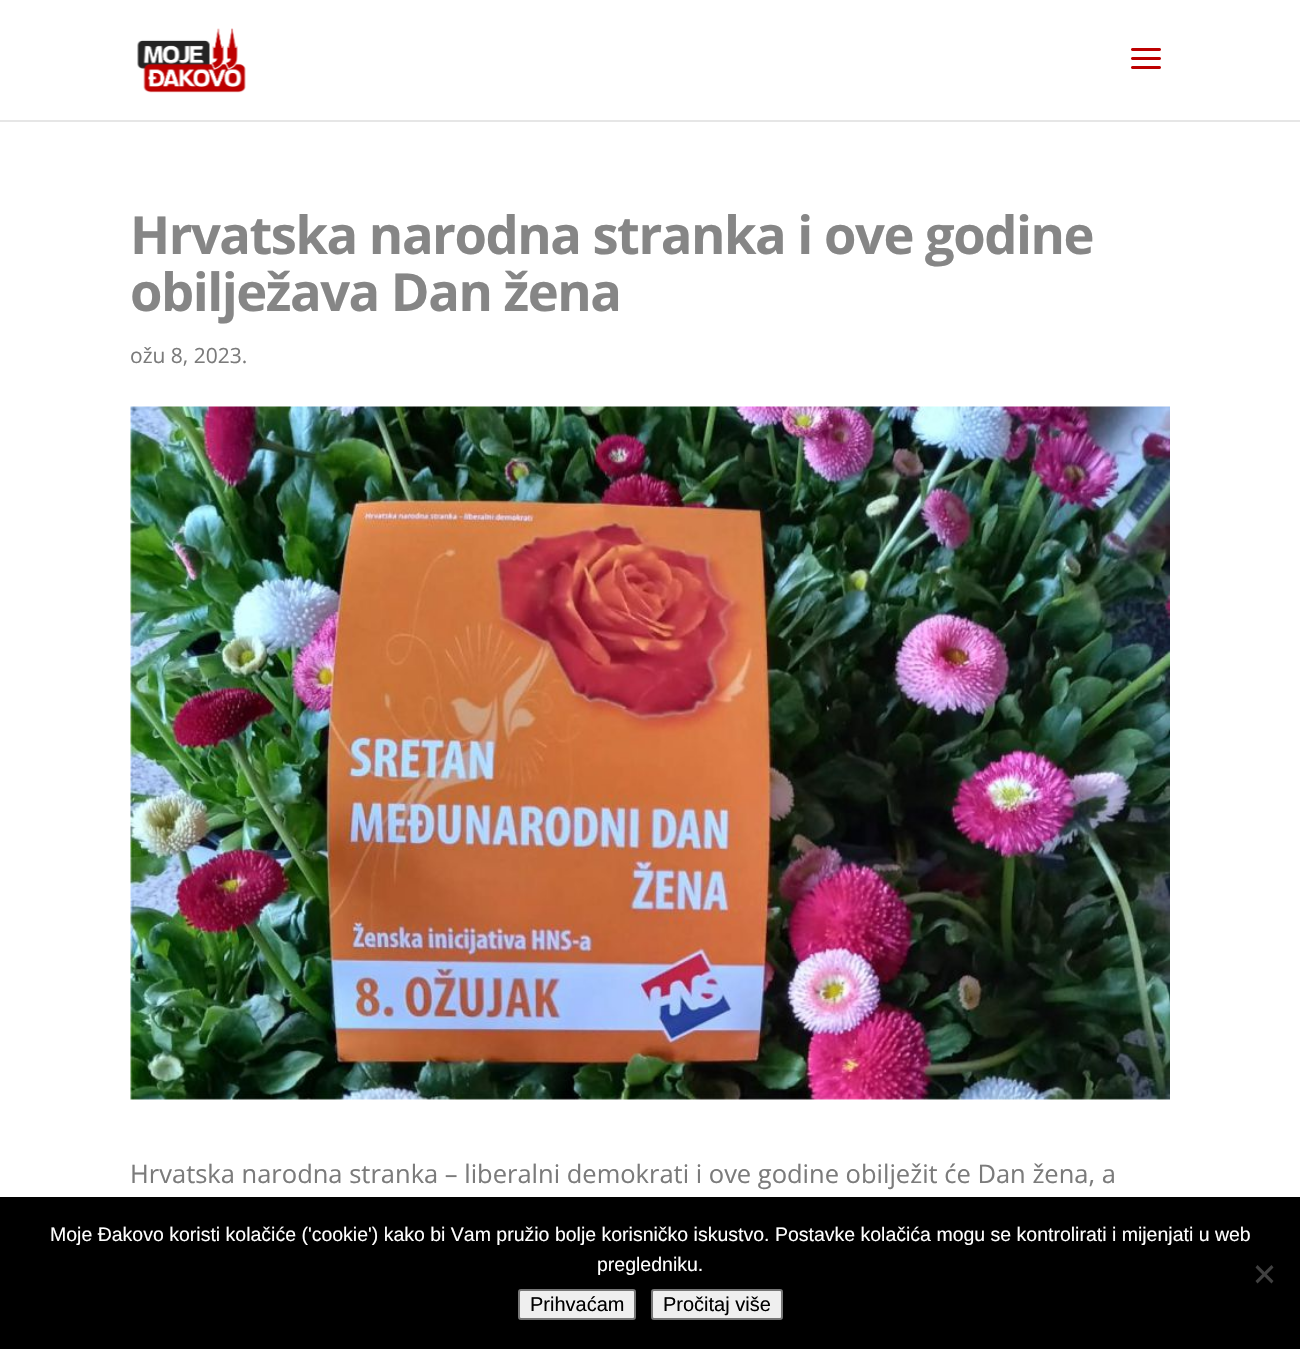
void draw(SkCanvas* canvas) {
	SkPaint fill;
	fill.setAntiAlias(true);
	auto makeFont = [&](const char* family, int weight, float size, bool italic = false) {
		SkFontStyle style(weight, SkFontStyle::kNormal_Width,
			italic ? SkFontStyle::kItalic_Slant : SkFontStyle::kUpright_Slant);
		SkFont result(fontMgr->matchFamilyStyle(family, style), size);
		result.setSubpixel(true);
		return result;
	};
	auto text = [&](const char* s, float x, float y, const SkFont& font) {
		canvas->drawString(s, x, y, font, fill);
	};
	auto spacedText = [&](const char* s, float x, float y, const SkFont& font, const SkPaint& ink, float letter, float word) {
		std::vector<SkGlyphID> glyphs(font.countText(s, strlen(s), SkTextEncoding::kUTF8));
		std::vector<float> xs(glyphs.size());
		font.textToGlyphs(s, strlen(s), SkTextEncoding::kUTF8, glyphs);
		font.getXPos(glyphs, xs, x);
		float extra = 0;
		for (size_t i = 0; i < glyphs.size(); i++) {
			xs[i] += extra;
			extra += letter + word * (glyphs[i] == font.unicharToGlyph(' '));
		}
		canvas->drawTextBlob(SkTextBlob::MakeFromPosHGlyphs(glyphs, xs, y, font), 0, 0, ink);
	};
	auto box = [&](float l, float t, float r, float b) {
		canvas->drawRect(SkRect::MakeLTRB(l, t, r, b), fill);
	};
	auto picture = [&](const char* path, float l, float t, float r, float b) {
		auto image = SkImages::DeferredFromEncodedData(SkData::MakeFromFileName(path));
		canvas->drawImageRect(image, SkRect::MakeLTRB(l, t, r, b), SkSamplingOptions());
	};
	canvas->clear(0xFFFFFFFF);
	fill.setColor(0xFFE6E6E6);
	canvas->drawPath(SkPathBuilder().moveTo(0, 120).lineTo(0, 122).lineTo(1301, 122).lineTo(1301, 2).lineTo(1300, 2).lineTo(1300, 120).close().detach(), fill);
	picture("image0.png", 137, 28, 246, 93);
	picture("image1.png", 1131, 48, 1161, 69);
	picture("image2.png", 130, 406, 1170, 1100);
	fill.setColor(0xFF000000);
	box(0, 1197, 1300, 1349);
	fill.setColor(0xFF404040);
	canvas->drawPath(SkPathBuilder().moveTo(1271.5f, 1265).lineTo(1273.5f, 1267.5f).lineTo(1257.5f, 1283.5f).lineTo(1255.5f, 1281).close().detach(), fill);
	canvas->drawPath(SkPathBuilder().moveTo(1255.5f, 1267.5f).lineTo(1257.5f, 1265).lineTo(1273.5f, 1281).lineTo(1271.5f, 1283.5f).close().detach(), fill);
	fill.setColor(0xFFEFEFEF);
	canvas->drawRoundRect(SkRect::MakeLTRB(519, 1290, 635, 1319), 2, 2, fill);
	fill.setStyle(SkPaint::kStroke_Style);
	fill.setStrokeWidth(2);
	fill.setColor(0xFF767676);
	canvas->drawRoundRect(SkRect::MakeLTRB(519, 1290, 635, 1319), 2, 2, fill);
	fill.setStyle(SkPaint::kFill_Style);
	fill.setColor(0xFFEFEFEF);
	canvas->drawRoundRect(SkRect::MakeLTRB(652, 1290, 782, 1319), 2, 2, fill);
	fill.setStyle(SkPaint::kStroke_Style);
	fill.setColor(0xFF767676);
	canvas->drawRoundRect(SkRect::MakeLTRB(652, 1290, 782, 1319), 2, 2, fill);
	auto font1 = makeFont("Open Sans", 700, 52.5f);
	fill.setStyle(SkPaint::kFill_Style);
	fill.setColor(0xFF868686);
	spacedText("Hrvatska narodna stranka i ove godine", 130, 254, font1, fill, -1.5f, 0);
	spacedText("obilježava Dan žena", 130, 311, font1, fill, -1.5f, 0);
	auto font2 = makeFont("Open Sans", 400, 21);
	fill.setColor(0xFF7B7B7B);
	text("ožu 8, 2023.", 130, 363, font2);
	auto font3 = makeFont("Open Sans", 400, 25.5f);
	text("Hrvatska narodna stranka – liberalni demokrati i ove godine obilježit će Dan žena, a", 130, 1183, font3);
	auto font4 = makeFont("Liberation Sans", 400, 19.5f);
	fill.setColor(0xFFFFFFFF);
	text("Moje Đakovo koristi kolačiće ('cookie') kako bi Vam pružio bolje korisničko iskustvo. Postavke kolačića mogu se kontrolirati i mijenjati u web", 50, 1241, font4);
	text("pregledniku.", 597, 1271, font4);
	auto font5 = makeFont("Liberation Sans", 400, 20);
	fill.setColor(0xFF000000);
	text("Prihvaćam", 530, 1311, font5);
	text("Pročitaj više", 663, 1311, font5);
}
